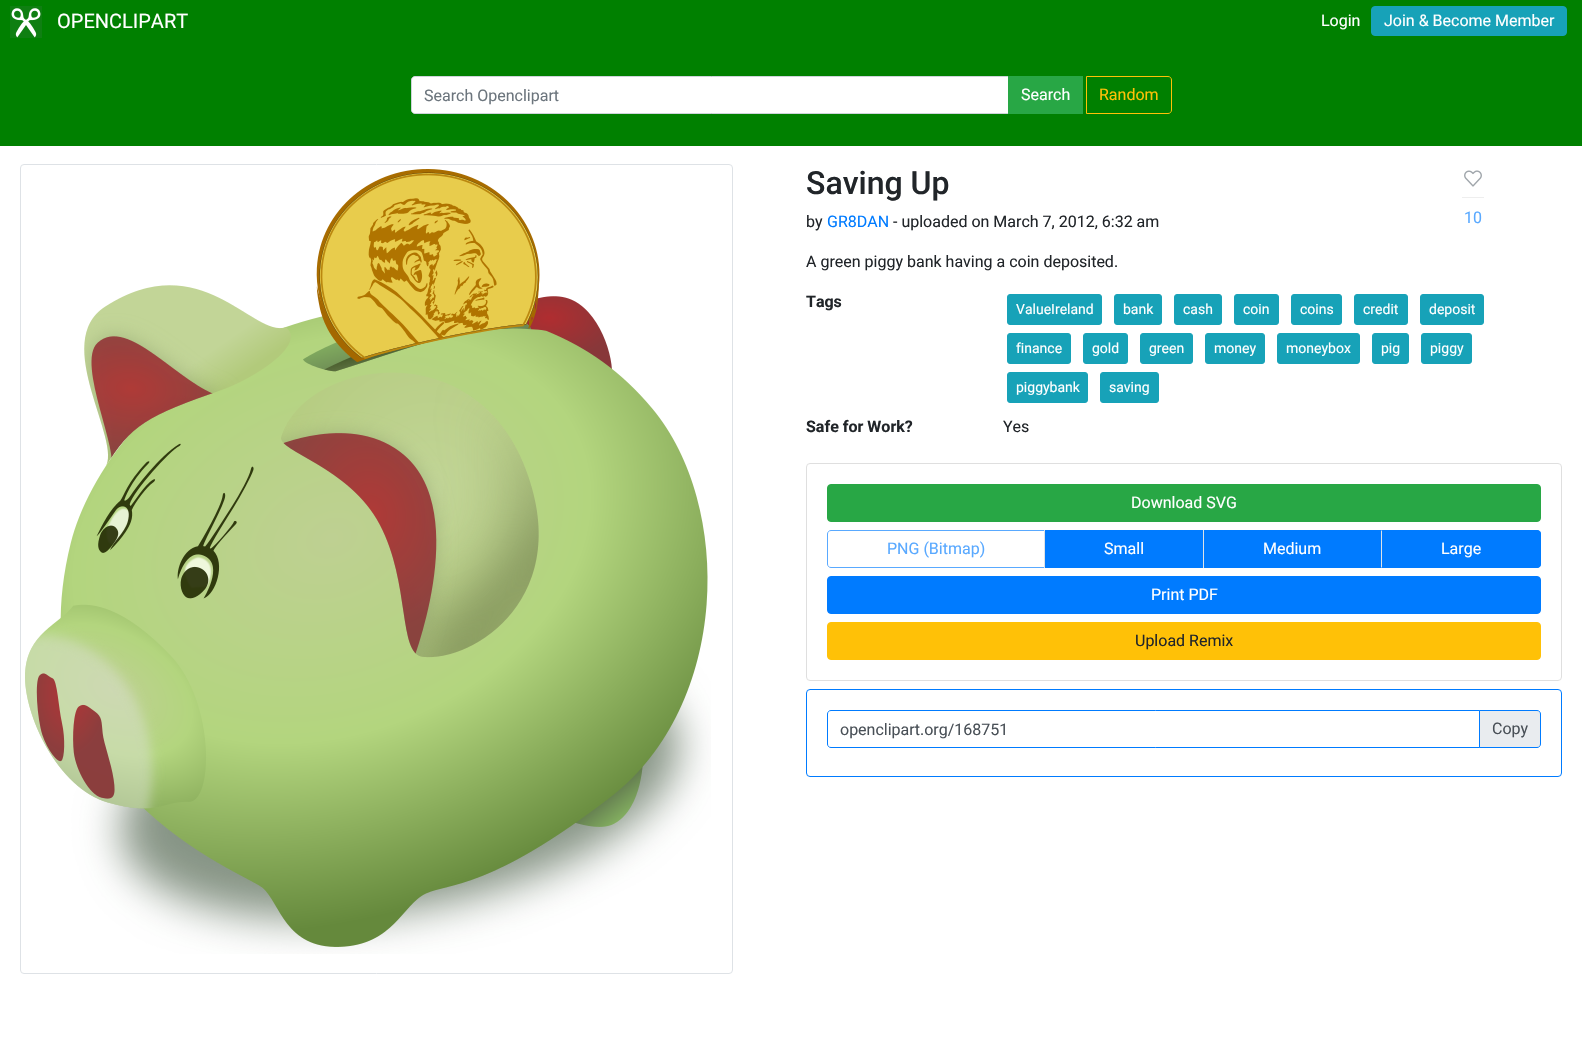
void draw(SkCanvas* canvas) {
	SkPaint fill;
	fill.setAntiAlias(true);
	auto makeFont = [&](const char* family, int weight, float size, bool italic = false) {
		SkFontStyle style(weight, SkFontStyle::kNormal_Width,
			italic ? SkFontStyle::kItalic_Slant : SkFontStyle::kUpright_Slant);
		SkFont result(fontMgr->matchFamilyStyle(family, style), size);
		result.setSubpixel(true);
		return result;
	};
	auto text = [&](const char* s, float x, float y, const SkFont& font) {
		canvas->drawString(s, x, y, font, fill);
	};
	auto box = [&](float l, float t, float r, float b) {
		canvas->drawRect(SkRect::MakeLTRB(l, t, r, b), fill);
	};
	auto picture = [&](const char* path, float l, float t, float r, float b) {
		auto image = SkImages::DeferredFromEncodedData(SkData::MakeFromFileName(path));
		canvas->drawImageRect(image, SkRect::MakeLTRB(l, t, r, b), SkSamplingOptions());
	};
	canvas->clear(0xFFFFFFFF);
	fill.setColor(0xFF008000);
	box(0, 0, 1582, 146);
	picture("image0.png", 10, 6, 42, 38);
	fill.setColor(0xFF17A2B8);
	canvas->drawRoundRect(SkRect::MakeLTRB(1371.5f, 6.5f, 1566.5f, 35.5f), 3.5f, 3.5f, fill);
	fill.setStyle(SkPaint::kStroke_Style);
	fill.setStrokeWidth(1);
	canvas->drawRoundRect(SkRect::MakeLTRB(1371.5f, 6.5f, 1566.5f, 35.5f), 3.5f, 3.5f, fill);
	fill.setStyle(SkPaint::kFill_Style);
	fill.setColor(0xFFFFFFFF);
	canvas->drawPath(SkPathBuilder().moveTo(415, 76.5f).lineTo(1008.5f, 76.5f).lineTo(1008.5f, 113.5f).lineTo(415, 113.5f).cubicTo(413, 113.5f, 411.5f, 112, 411.5f, 110).lineTo(411.5f, 80).cubicTo(411.5f, 78, 413, 76.5f, 415, 76.5f).close().detach(), fill);
	fill.setStyle(SkPaint::kStroke_Style);
	fill.setColor(0xFFCED4DA);
	canvas->drawPath(SkPathBuilder().moveTo(415, 76.5f).lineTo(1008.5f, 76.5f).lineTo(1008.5f, 113.5f).lineTo(415, 113.5f).cubicTo(413, 113.5f, 411.5f, 112, 411.5f, 110).lineTo(411.5f, 80).cubicTo(411.5f, 78, 413, 76.5f, 415, 76.5f).close().detach(), fill);
	fill.setStyle(SkPaint::kFill_Style);
	fill.setColor(0xFF28A745);
	box(1008, 76, 1083, 114);
	fill.setStyle(SkPaint::kStroke_Style);
	fill.setColor(0xFFFFC107);
	canvas->drawPath(SkPathBuilder().moveTo(1086.5f, 76.5f).lineTo(1168, 76.5f).cubicTo(1170, 76.5f, 1171.5f, 78, 1171.5f, 80).lineTo(1171.5f, 110).cubicTo(1171.5f, 112, 1170, 113.5f, 1168, 113.5f).lineTo(1086.5f, 113.5f).close().detach(), fill);
	fill.setColor(0xFFDEE2E6);
	canvas->drawRoundRect(SkRect::MakeLTRB(20.5f, 164.5f, 732.5f, 973.5f), 3.5f, 3.5f, fill);
	picture("image1.png", 25, 169, 711, 954);
	picture("image2.png", 1464, 170, 1482, 187);
	fill.setStyle(SkPaint::kFill_Style);
	fill.setColor(0xFFEEEEEE);
	box(1462, 197, 1484, 198);
	fill.setColor(0xFF17A2B8);
	canvas->drawRoundRect(SkRect::MakeLTRB(1007.5f, 294.5f, 1101.5f, 324.5f), 2.5f, 2.5f, fill);
	fill.setStyle(SkPaint::kStroke_Style);
	canvas->drawRoundRect(SkRect::MakeLTRB(1007.5f, 294.5f, 1101.5f, 324.5f), 2.5f, 2.5f, fill);
	fill.setStyle(SkPaint::kFill_Style);
	canvas->drawRoundRect(SkRect::MakeLTRB(1114.5f, 294.5f, 1161.5f, 324.5f), 2.5f, 2.5f, fill);
	fill.setStyle(SkPaint::kStroke_Style);
	canvas->drawRoundRect(SkRect::MakeLTRB(1114.5f, 294.5f, 1161.5f, 324.5f), 2.5f, 2.5f, fill);
	fill.setStyle(SkPaint::kFill_Style);
	canvas->drawRoundRect(SkRect::MakeLTRB(1174.5f, 294.5f, 1221.5f, 324.5f), 2.5f, 2.5f, fill);
	fill.setStyle(SkPaint::kStroke_Style);
	canvas->drawRoundRect(SkRect::MakeLTRB(1174.5f, 294.5f, 1221.5f, 324.5f), 2.5f, 2.5f, fill);
	fill.setStyle(SkPaint::kFill_Style);
	canvas->drawRoundRect(SkRect::MakeLTRB(1234.5f, 294.5f, 1278.5f, 324.5f), 2.5f, 2.5f, fill);
	fill.setStyle(SkPaint::kStroke_Style);
	canvas->drawRoundRect(SkRect::MakeLTRB(1234.5f, 294.5f, 1278.5f, 324.5f), 2.5f, 2.5f, fill);
	fill.setStyle(SkPaint::kFill_Style);
	canvas->drawRoundRect(SkRect::MakeLTRB(1291.5f, 294.5f, 1341.5f, 324.5f), 2.5f, 2.5f, fill);
	fill.setStyle(SkPaint::kStroke_Style);
	canvas->drawRoundRect(SkRect::MakeLTRB(1291.5f, 294.5f, 1341.5f, 324.5f), 2.5f, 2.5f, fill);
	fill.setStyle(SkPaint::kFill_Style);
	canvas->drawRoundRect(SkRect::MakeLTRB(1354.5f, 294.5f, 1407.5f, 324.5f), 2.5f, 2.5f, fill);
	fill.setStyle(SkPaint::kStroke_Style);
	canvas->drawRoundRect(SkRect::MakeLTRB(1354.5f, 294.5f, 1407.5f, 324.5f), 2.5f, 2.5f, fill);
	fill.setStyle(SkPaint::kFill_Style);
	canvas->drawRoundRect(SkRect::MakeLTRB(1420.5f, 294.5f, 1483.5f, 324.5f), 2.5f, 2.5f, fill);
	fill.setStyle(SkPaint::kStroke_Style);
	canvas->drawRoundRect(SkRect::MakeLTRB(1420.5f, 294.5f, 1483.5f, 324.5f), 2.5f, 2.5f, fill);
	fill.setStyle(SkPaint::kFill_Style);
	canvas->drawRoundRect(SkRect::MakeLTRB(1007.5f, 333.5f, 1070.5f, 363.5f), 2.5f, 2.5f, fill);
	fill.setStyle(SkPaint::kStroke_Style);
	canvas->drawRoundRect(SkRect::MakeLTRB(1007.5f, 333.5f, 1070.5f, 363.5f), 2.5f, 2.5f, fill);
	fill.setStyle(SkPaint::kFill_Style);
	canvas->drawRoundRect(SkRect::MakeLTRB(1083.5f, 333.5f, 1127.5f, 363.5f), 2.5f, 2.5f, fill);
	fill.setStyle(SkPaint::kStroke_Style);
	canvas->drawRoundRect(SkRect::MakeLTRB(1083.5f, 333.5f, 1127.5f, 363.5f), 2.5f, 2.5f, fill);
	fill.setStyle(SkPaint::kFill_Style);
	canvas->drawRoundRect(SkRect::MakeLTRB(1140.5f, 333.5f, 1192.5f, 363.5f), 2.5f, 2.5f, fill);
	fill.setStyle(SkPaint::kStroke_Style);
	canvas->drawRoundRect(SkRect::MakeLTRB(1140.5f, 333.5f, 1192.5f, 363.5f), 2.5f, 2.5f, fill);
	fill.setStyle(SkPaint::kFill_Style);
	canvas->drawRoundRect(SkRect::MakeLTRB(1205.5f, 333.5f, 1264.5f, 363.5f), 2.5f, 2.5f, fill);
	fill.setStyle(SkPaint::kStroke_Style);
	canvas->drawRoundRect(SkRect::MakeLTRB(1205.5f, 333.5f, 1264.5f, 363.5f), 2.5f, 2.5f, fill);
	fill.setStyle(SkPaint::kFill_Style);
	canvas->drawRoundRect(SkRect::MakeLTRB(1277.5f, 333.5f, 1359.5f, 363.5f), 2.5f, 2.5f, fill);
	fill.setStyle(SkPaint::kStroke_Style);
	canvas->drawRoundRect(SkRect::MakeLTRB(1277.5f, 333.5f, 1359.5f, 363.5f), 2.5f, 2.5f, fill);
	fill.setStyle(SkPaint::kFill_Style);
	canvas->drawRoundRect(SkRect::MakeLTRB(1372.5f, 333.5f, 1408.5f, 363.5f), 2.5f, 2.5f, fill);
	fill.setStyle(SkPaint::kStroke_Style);
	canvas->drawRoundRect(SkRect::MakeLTRB(1372.5f, 333.5f, 1408.5f, 363.5f), 2.5f, 2.5f, fill);
	fill.setStyle(SkPaint::kFill_Style);
	canvas->drawRoundRect(SkRect::MakeLTRB(1421.5f, 333.5f, 1471.5f, 363.5f), 2.5f, 2.5f, fill);
	fill.setStyle(SkPaint::kStroke_Style);
	canvas->drawRoundRect(SkRect::MakeLTRB(1421.5f, 333.5f, 1471.5f, 363.5f), 2.5f, 2.5f, fill);
	fill.setStyle(SkPaint::kFill_Style);
	canvas->drawRoundRect(SkRect::MakeLTRB(1007.5f, 372.5f, 1087.5f, 402.5f), 2.5f, 2.5f, fill);
	fill.setStyle(SkPaint::kStroke_Style);
	canvas->drawRoundRect(SkRect::MakeLTRB(1007.5f, 372.5f, 1087.5f, 402.5f), 2.5f, 2.5f, fill);
	fill.setStyle(SkPaint::kFill_Style);
	canvas->drawRoundRect(SkRect::MakeLTRB(1100.5f, 372.5f, 1158.5f, 402.5f), 2.5f, 2.5f, fill);
	fill.setStyle(SkPaint::kStroke_Style);
	canvas->drawRoundRect(SkRect::MakeLTRB(1100.5f, 372.5f, 1158.5f, 402.5f), 2.5f, 2.5f, fill);
	fill.setColor(0xFFDFDFDF);
	canvas->drawRoundRect(SkRect::MakeLTRB(806.5f, 463.5f, 1561.5f, 680.5f), 3.5f, 3.5f, fill);
	fill.setStyle(SkPaint::kFill_Style);
	fill.setColor(0xFF28A745);
	canvas->drawRoundRect(SkRect::MakeLTRB(827.5f, 484.5f, 1540.5f, 521.5f), 3.5f, 3.5f, fill);
	fill.setStyle(SkPaint::kStroke_Style);
	canvas->drawRoundRect(SkRect::MakeLTRB(827.5f, 484.5f, 1540.5f, 521.5f), 3.5f, 3.5f, fill);
	fill.setColor(0xFF59A9FF);
	canvas->drawPath(SkPathBuilder().moveTo(831, 530.5f).lineTo(1044.5f, 530.5f).lineTo(1044.5f, 567.5f).lineTo(831, 567.5f).cubicTo(829, 567.5f, 827.5f, 566, 827.5f, 564).lineTo(827.5f, 534).cubicTo(827.5f, 532, 829, 530.5f, 831, 530.5f).close().detach(), fill);
	fill.setStyle(SkPaint::kFill_Style);
	fill.setColor(0xFF007BFF);
	box(1045, 530, 1203, 568);
	fill.setColor(0xFFDEE2E6);
	box(1044, 530, 1045, 568);
	fill.setColor(0xFF007BFF);
	box(1204, 530, 1381, 568);
	fill.setColor(0xFFDEE2E6);
	box(1203, 530, 1204, 568);
	fill.setColor(0xFF007BFF);
	canvas->drawPath(SkPathBuilder().moveTo(1381, 530).lineTo(1537, 530).cubicTo(1539, 530, 1541, 532, 1541, 534).lineTo(1541, 564).cubicTo(1541, 566, 1539, 568, 1537, 568).lineTo(1381, 568).close().detach(), fill);
	canvas->drawPath(SkPathBuilder().moveTo(1381, 530).lineTo(1382, 531).lineTo(1537, 531).lineTo(1539, 532).lineTo(1540, 531).lineTo(1537, 530).close().detach(), fill);
	canvas->drawPath(SkPathBuilder().moveTo(1541, 564).lineTo(1541, 534).cubicTo(1541, 533, 1540.5f, 532, 1540, 531).lineTo(1539, 532).cubicTo(1540, 532, 1540, 533, 1540, 534).lineTo(1540, 564).cubicTo(1540, 565, 1540, 566, 1539, 566).lineTo(1540, 567).cubicTo(1540.5f, 566, 1541, 565, 1541, 564).close().detach(), fill);
	canvas->drawPath(SkPathBuilder().moveTo(1537, 568).lineTo(1540, 567).lineTo(1539, 566).lineTo(1537, 567).lineTo(1382, 567).lineTo(1381, 568).close().detach(), fill);
	fill.setColor(0xFFDEE2E6);
	canvas->drawPath(SkPathBuilder().moveTo(1381, 530).lineTo(1381, 568).lineTo(1382, 567).lineTo(1382, 531).close().detach(), fill);
	fill.setColor(0xFF007BFF);
	canvas->drawRoundRect(SkRect::MakeLTRB(827.5f, 576.5f, 1540.5f, 613.5f), 3.5f, 3.5f, fill);
	fill.setStyle(SkPaint::kStroke_Style);
	canvas->drawRoundRect(SkRect::MakeLTRB(827.5f, 576.5f, 1540.5f, 613.5f), 3.5f, 3.5f, fill);
	fill.setStyle(SkPaint::kFill_Style);
	fill.setColor(0xFFFFC107);
	canvas->drawRoundRect(SkRect::MakeLTRB(827.5f, 622.5f, 1540.5f, 659.5f), 3.5f, 3.5f, fill);
	fill.setStyle(SkPaint::kStroke_Style);
	canvas->drawRoundRect(SkRect::MakeLTRB(827.5f, 622.5f, 1540.5f, 659.5f), 3.5f, 3.5f, fill);
	fill.setColor(0xFF007BFF);
	canvas->drawRoundRect(SkRect::MakeLTRB(806.5f, 689.5f, 1561.5f, 776.5f), 3.5f, 3.5f, fill);
	canvas->drawPath(SkPathBuilder().moveTo(831, 710.5f).lineTo(1479.5f, 710.5f).lineTo(1479.5f, 747.5f).lineTo(831, 747.5f).cubicTo(829, 747.5f, 827.5f, 746, 827.5f, 744).lineTo(827.5f, 714).cubicTo(827.5f, 712, 829, 710.5f, 831, 710.5f).close().detach(), fill);
	fill.setStyle(SkPaint::kFill_Style);
	fill.setColor(0xFFE9ECEF);
	canvas->drawPath(SkPathBuilder().moveTo(1479.5f, 710.5f).lineTo(1537, 710.5f).cubicTo(1539, 710.5f, 1540.5f, 712, 1540.5f, 714).lineTo(1540.5f, 744).cubicTo(1540.5f, 746, 1539, 747.5f, 1537, 747.5f).lineTo(1479.5f, 747.5f).close().detach(), fill);
	fill.setStyle(SkPaint::kStroke_Style);
	fill.setColor(0xFF007BFF);
	canvas->drawPath(SkPathBuilder().moveTo(1479.5f, 710.5f).lineTo(1537, 710.5f).cubicTo(1539, 710.5f, 1540.5f, 712, 1540.5f, 714).lineTo(1540.5f, 744).cubicTo(1540.5f, 746, 1539, 747.5f, 1537, 747.5f).lineTo(1479.5f, 747.5f).close().detach(), fill);
	auto font1 = makeFont("Roboto", 400, 20);
	fill.setStyle(SkPaint::kFill_Style);
	fill.setColor(0xFFFFFFFF);
	text("OPENCLIPART", 57, 28, font1);
	auto font2 = makeFont("Roboto", 400, 16);
	text("Login", 1321, 26, font2);
	text("Join & Become Member", 1384, 26, font2);
	fill.setColor(0xFF6C757D);
	text("Search Openclipart", 424, 101, font2);
	fill.setColor(0xFFFFFFFF);
	text("Search", 1021, 100, font2);
	fill.setColor(0xFFFFC107);
	text("Random", 1099, 100, font2);
	auto font3 = makeFont("Roboto", 500, 32);
	fill.setColor(0xFF212529);
	text("Saving Up", 806, 194, font3);
	text("by", 806, 227, font2);
	fill.setColor(0xFF007BFF);
	text("GR8DAN", 827, 227, font2);
	fill.setColor(0xFF212529);
	text("- uploaded on March 7, 2012, 6:32 am", 893, 227, font2);
	text("A green piggy bank having a coin deposited.", 806, 267, font2);
	fill.setColor(0xFF59A9FF);
	text("10", 1464, 223, font2);
	auto font4 = makeFont("Roboto", 700, 16);
	fill.setColor(0xFF212529);
	text("Tags", 806, 307, font4);
	auto font5 = makeFont("Roboto", 400, 14);
	fill.setColor(0xFFFFFFFF);
	text("ValueIreland", 1016, 314, font5);
	text("bank", 1123, 314, font5);
	text("cash", 1183, 314, font5);
	text("coin", 1243, 314, font5);
	text("coins", 1300, 314, font5);
	text("credit", 1363, 314, font5);
	text("deposit", 1429, 314, font5);
	text("finance", 1016, 353, font5);
	text("gold", 1092, 353, font5);
	text("green", 1149, 353, font5);
	text("money", 1214, 353, font5);
	text("moneybox", 1286, 353, font5);
	text("pig", 1381, 353, font5);
	text("piggy", 1430, 353, font5);
	text("piggybank", 1016, 392, font5);
	text("saving", 1109, 392, font5);
	fill.setColor(0xFF212529);
	text("Safe for Work?", 806, 432, font4);
	text("Yes", 1003, 432, font2);
	fill.setColor(0xFFFFFFFF);
	text("Download SVG", 1131, 508, font2);
	fill.setColor(0xFF59A9FF);
	text("PNG (Bitmap)", 887, 554, font2);
	fill.setColor(0xFFFFFFFF);
	text("Small", 1104, 554, font2);
	text("Medium", 1263, 554, font2);
	text("Large", 1441, 554, font2);
	text("Print PDF", 1151, 600, font2);
	fill.setColor(0xFF212529);
	text("Upload Remix", 1135, 646, font2);
	fill.setColor(0xFF495057);
	text("openclipart.org/168751", 840, 735, font2);
	text("Copy", 1492, 734, font2);
}
